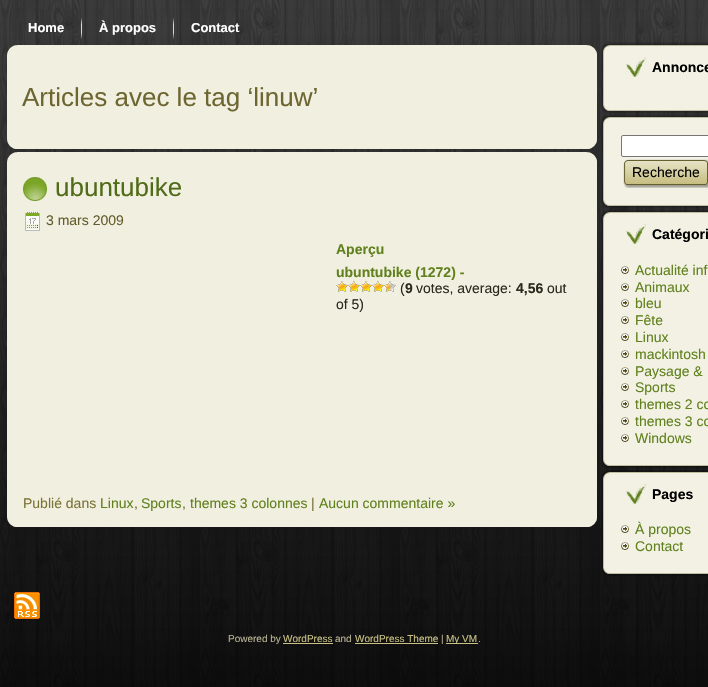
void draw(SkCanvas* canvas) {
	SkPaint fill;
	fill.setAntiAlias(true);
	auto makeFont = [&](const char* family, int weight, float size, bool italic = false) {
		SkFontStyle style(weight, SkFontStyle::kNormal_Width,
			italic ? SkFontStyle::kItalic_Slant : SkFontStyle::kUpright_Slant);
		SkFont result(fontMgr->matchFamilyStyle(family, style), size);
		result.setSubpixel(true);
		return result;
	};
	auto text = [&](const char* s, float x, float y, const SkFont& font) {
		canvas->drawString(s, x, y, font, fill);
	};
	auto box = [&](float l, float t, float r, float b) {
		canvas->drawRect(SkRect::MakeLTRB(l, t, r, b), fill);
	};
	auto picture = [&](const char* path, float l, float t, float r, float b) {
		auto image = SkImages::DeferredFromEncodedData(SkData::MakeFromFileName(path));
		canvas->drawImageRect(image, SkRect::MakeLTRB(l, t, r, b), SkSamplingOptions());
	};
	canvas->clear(0xFFFFFFFF);
	picture("image0.png", 0, 0, 708, 687);
	picture("image1.png", 81, 18, 82, 39);
	picture("image2.png", 173, 18, 174, 39);
	picture("image3.png", 7, 45, 17, 55);
	fill.setColor(0xFFF1EFDF);
	box(17, 45, 587, 55);
	picture("image4.png", 587, 45, 597, 55);
	box(7, 55, 17, 139);
	box(17, 55, 597, 139);
	picture("image5.png", 7, 139, 17, 149);
	box(17, 139, 587, 149);
	picture("image6.png", 587, 139, 597, 149);
	picture("image7.png", 7, 152, 17, 162);
	box(17, 152, 587, 162);
	picture("image8.png", 587, 152, 597, 162);
	box(7, 162, 17, 517);
	box(17, 162, 597, 517);
	picture("image9.png", 23, 177, 47, 201);
	picture("image10.png", 25, 212, 40, 231);
	picture("image11.png", 336, 281, 348, 292);
	picture("image11.png", 348, 281, 360, 292);
	picture("image11.png", 360, 281, 372, 292);
	picture("image11.png", 372, 281, 384, 292);
	picture("image12.png", 384, 281, 396, 292);
	picture("image13.png", 7, 517, 17, 527);
	box(17, 517, 587, 527);
	picture("image14.png", 587, 517, 597, 527);
	picture("image15.png", 600, 42, 619, 61);
	picture("image16.png", 619, 42, 708, 61);
	picture("image17.png", 600, 61, 619, 95);
	fill.setColor(0xFFF2F1E3);
	box(619, 61, 708, 95);
	picture("image18.png", 626, 57, 646, 77);
	picture("image19.png", 600, 95, 619, 114);
	picture("image20.png", 619, 95, 708, 114);
	picture("image21.png", 600, 114, 619, 133);
	picture("image22.png", 619, 114, 708, 133);
	picture("image23.png", 600, 133, 619, 190);
	box(619, 133, 708, 190);
	fill.setColor(0xFFFFFFFF);
	canvas->drawRoundRect(SkRect::MakeLTRB(621.5f, 135.5f, 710.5f, 156.5f), 1.5f, 1.5f, fill);
	fill.setStyle(SkPaint::kStroke_Style);
	fill.setStrokeWidth(1);
	fill.setColor(0xFF767676);
	canvas->drawRoundRect(SkRect::MakeLTRB(621.5f, 135.5f, 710.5f, 156.5f), 1.5f, 1.5f, fill);
	picture("image24.png", 623, 159, 701, 188);
	picture("image25.png", 701, 159, 708, 188);
	picture("image26.png", 600, 190, 619, 209);
	picture("image27.png", 619, 190, 708, 209);
	picture("image28.png", 600, 209, 619, 228);
	picture("image29.png", 619, 209, 708, 228);
	picture("image30.png", 600, 228, 619, 450);
	fill.setStyle(SkPaint::kFill_Style);
	fill.setColor(0xFFF2F1E3);
	box(619, 228, 708, 450);
	picture("image18.png", 626, 224, 646, 244);
	picture("image31.png", 621, 266, 629, 274);
	picture("image31.png", 621, 283, 629, 291);
	picture("image31.png", 621, 299, 629, 307);
	picture("image31.png", 621, 316, 629, 324);
	picture("image31.png", 621, 333, 629, 341);
	picture("image31.png", 621, 350, 629, 358);
	picture("image31.png", 621, 367, 629, 375);
	picture("image31.png", 621, 383, 629, 391);
	picture("image31.png", 621, 400, 629, 408);
	picture("image31.png", 621, 417, 629, 425);
	picture("image31.png", 621, 434, 629, 442);
	picture("image32.png", 601, 450, 619, 468);
	picture("image33.png", 619, 450, 708, 468);
	picture("image34.png", 601, 470, 619, 488);
	picture("image35.png", 619, 470, 708, 488);
	picture("image36.png", 601, 488, 619, 558);
	box(619, 488, 708, 558);
	picture("image18.png", 626, 484, 646, 504);
	picture("image31.png", 621, 525, 629, 533);
	picture("image31.png", 621, 542, 629, 550);
	picture("image37.png", 601, 558, 619, 576);
	picture("image38.png", 619, 558, 708, 576);
	picture("image39.png", 14, 592, 40, 619);
	fill.setColor(0xFFC8C084);
	box(283, 643, 333, 644);
	box(355, 643, 438, 644);
	box(446, 643, 478, 644);
	auto font1 = makeFont("Liberation Sans", 700, 13);
	fill.setColor(0xFFFFFFFF);
	text("Home", 28, 32, font1);
	text("À propos", 99, 32, font1);
	text("Contact", 191, 32, font1);
	auto font2 = makeFont("Liberation Sans", 400, 26);
	fill.setColor(0xFF6D6631);
	text("Articles avec le tag ‘linuw’", 22, 106, font2);
	fill.setColor(0xFF506C19);
	text("ubuntubike", 55, 196, font2);
	auto font3 = makeFont("Liberation Sans", 400, 14);
	fill.setColor(0xFF635C2C);
	text("3 mars 2009", 46, 225, font3);
	auto font4 = makeFont("Liberation Sans", 700, 14);
	fill.setColor(0xFF60811D);
	text("Aperçu", 336, 254, font4);
	text("ubuntubike (1272) -", 336, 277, font4);
	fill.setColor(0xFF2B291D);
	text("(", 400, 293, font3);
	text("9", 405, 293, font4);
	text("votes, average:", 416, 293, font3);
	text("4,56", 516, 293, font4);
	text("out", 547, 293, font3);
	text("of 5)", 336, 309, font3);
	fill.setColor(0xFF7B7337);
	text("Publié dans", 23, 508, font3);
	fill.setColor(0xFF60811D);
	text("Linux", 100, 508, font3);
	fill.setColor(0xFF7B7337);
	text(",", 134, 508, font3);
	fill.setColor(0xFF60811D);
	text("Sports", 141, 508, font3);
	fill.setColor(0xFF7B7337);
	text(",", 182, 508, font3);
	fill.setColor(0xFF60811D);
	text("themes 3 colonnes", 190, 508, font3);
	fill.setColor(0xFF7B7337);
	text("|", 311, 508, font3);
	fill.setColor(0xFF60811D);
	text("Aucun commentaire »", 319, 508, font3);
	fill.setColor(0xFF000000);
	text("Annonce", 652, 72, font4);
	text("Recherche", 632, 177, font3);
	text("Catégori", 652, 239, font4);
	fill.setColor(0xFF60811D);
	text("Actualité inf", 635, 275, font3);
	text("Animaux", 635, 292, font3);
	text("bleu", 635, 308, font3);
	text("Fête", 635, 325, font3);
	text("Linux", 635, 342, font3);
	text("mackintosh", 635, 359, font3);
	text("Paysage &", 635, 376, font3);
	text("Sports", 635, 392, font3);
	text("themes 2 co", 635, 409, font3);
	text("themes 3 co", 635, 426, font3);
	text("Windows", 635, 443, font3);
	fill.setColor(0xFF000000);
	text("Pages", 652, 499, font4);
	fill.setColor(0xFF60811D);
	text("À propos", 635, 534, font3);
	text("Contact", 635, 551, font3);
	auto font5 = makeFont("Liberation Sans", 400, 10);
	fill.setColor(0xFFB8B394);
	text("Powered by", 228, 642, font5);
	fill.setColor(0xFFC8C084);
	text("WordPress", 283, 642, font5);
	fill.setColor(0xFFB8B394);
	text("and", 335, 642, font5);
	fill.setColor(0xFFC8C084);
	text("WordPress Theme", 355, 642, font5);
	fill.setColor(0xFFB8B394);
	text("|", 441, 642, font5);
	fill.setColor(0xFFC8C084);
	text("My VM", 446, 642, font5);
	fill.setColor(0xFFB8B394);
	text(".", 478, 642, font5);
}
